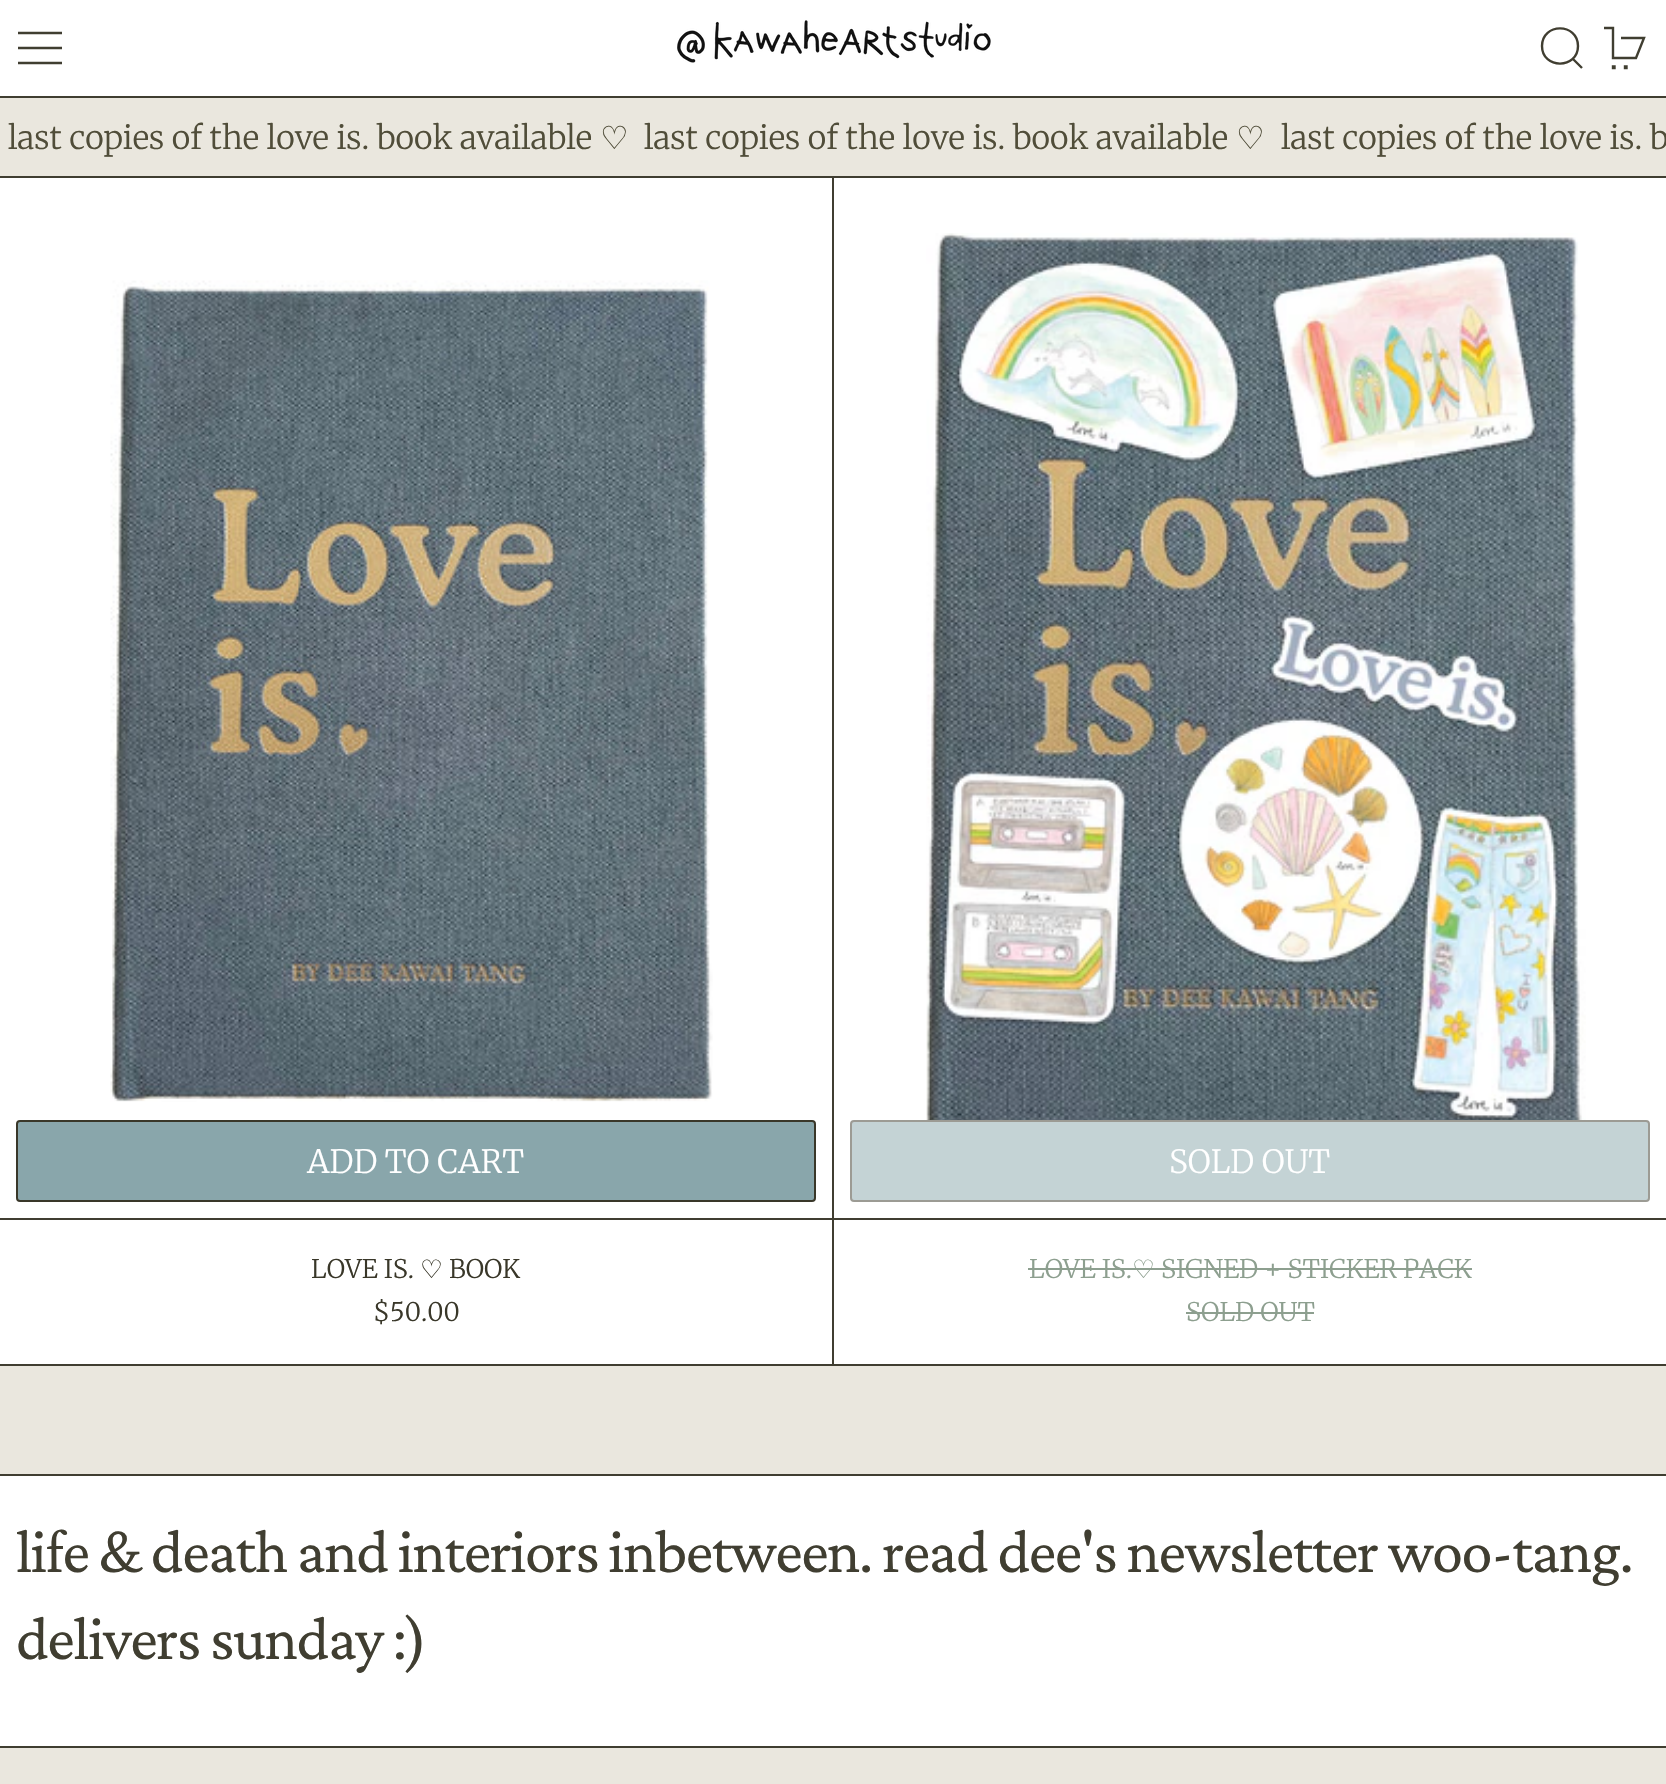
void draw(SkCanvas* canvas) {
	SkPaint fill;
	fill.setAntiAlias(true);
	auto makeFont = [&](const char* family, int weight, float size, bool italic = false) {
		SkFontStyle style(weight, SkFontStyle::kNormal_Width,
			italic ? SkFontStyle::kItalic_Slant : SkFontStyle::kUpright_Slant);
		SkFont result(fontMgr->matchFamilyStyle(family, style), size);
		result.setSubpixel(true);
		return result;
	};
	auto text = [&](const char* s, float x, float y, const SkFont& font) {
		canvas->drawString(s, x, y, font, fill);
	};
	auto spacedText = [&](const char* s, float x, float y, const SkFont& font, const SkPaint& ink, float letter, float word) {
		std::vector<SkGlyphID> glyphs(font.countText(s, strlen(s), SkTextEncoding::kUTF8));
		std::vector<float> xs(glyphs.size());
		font.textToGlyphs(s, strlen(s), SkTextEncoding::kUTF8, glyphs);
		font.getXPos(glyphs, xs, x);
		float extra = 0;
		for (size_t i = 0; i < glyphs.size(); i++) {
			xs[i] += extra;
			extra += letter + word * (glyphs[i] == font.unicharToGlyph(' '));
		}
		canvas->drawTextBlob(SkTextBlob::MakeFromPosHGlyphs(glyphs, xs, y, font), 0, 0, ink);
	};
	auto box = [&](float l, float t, float r, float b) {
		canvas->drawRect(SkRect::MakeLTRB(l, t, r, b), fill);
	};
	auto picture = [&](const char* path, float l, float t, float r, float b) {
		auto image = SkImages::DeferredFromEncodedData(SkData::MakeFromFileName(path));
		canvas->drawImageRect(image, SkRect::MakeLTRB(l, t, r, b), SkSamplingOptions());
	};
	canvas->clear(0xFFFFFFFF);
	fill.setColor(0xFF403E31);
	box(0, 96, 1666, 98);
	fill.setStyle(SkPaint::kStroke_Style);
	fill.setStrokeWidth(2.4f);
	canvas->drawPath(SkPathBuilder().moveTo(18, 33).lineTo(62, 33).moveTo(18, 48).lineTo(62, 48).moveTo(18, 63).lineTo(62, 63).detach(), fill);
	picture("image0.png", 677, 20, 991, 63);
	canvas->drawPath(SkPathBuilder().moveTo(1542, 46).cubicTo(1542, 69.5f, 1578, 69.5f, 1578, 46).cubicTo(1578, 22.5f, 1542, 22.5f, 1542, 46).close().moveTo(1572.5f, 58.5f).lineTo(1582, 68).detach(), fill);
	canvas->drawPath(SkPathBuilder().moveTo(1604, 28).lineTo(1613, 28).lineTo(1613, 58).lineTo(1636, 58).lineTo(1644, 38).lineTo(1621, 38).moveTo(1613, 68).lineTo(1613, 66.5f).lineTo(1614.5f, 66.5f).lineTo(1614.5f, 68).close().moveTo(1625, 68).lineTo(1625, 66.5f).lineTo(1626.5f, 66.5f).lineTo(1626.5f, 68).close().detach(), fill);
	fill.setStyle(SkPaint::kFill_Style);
	fill.setColor(0xFFEAE7DE);
	box(0, 98, 1666, 176);
	fill.setColor(0xFF403E31);
	box(0, 176, 1666, 178);
	box(0, 1474, 1666, 1476);
	box(832, 178, 834, 1364);
	box(0, 1218, 832, 1220);
	picture("image1.png", 110, 280, 713, 1102);
	fill.setColor(0xFF89A6AB);
	canvas->drawRoundRect(SkRect::MakeLTRB(17, 1121, 815, 1201), 3, 3, fill);
	fill.setStyle(SkPaint::kStroke_Style);
	fill.setStrokeWidth(2);
	fill.setColor(0xFF393729);
	canvas->drawRoundRect(SkRect::MakeLTRB(17, 1121, 815, 1201), 3, 3, fill);
	fill.setStyle(SkPaint::kFill_Style);
	fill.setColor(0xFF403E31);
	box(834, 1218, 1666, 1220);
	picture("image2.png", 926, 233, 1586, 1120);
	fill.setColor(0xFFC4D3D5);
	canvas->drawRoundRect(SkRect::MakeLTRB(851, 1121, 1649, 1201), 3, 3, fill);
	fill.setStyle(SkPaint::kStroke_Style);
	fill.setColor(0xFF9C9B94);
	canvas->drawRoundRect(SkRect::MakeLTRB(851, 1121, 1649, 1201), 3, 3, fill);
	fill.setStyle(SkPaint::kFill_Style);
	fill.setColor(0xFF8D9F8F);
	box(1028, 1268, 1472, 1270);
	box(1186, 1312, 1314, 1314);
	fill.setColor(0xFFEAE7DE);
	box(0, 1366, 1666, 1474);
	fill.setColor(0xFF403E31);
	box(0, 1364, 1666, 1366);
	box(0, 1746, 1666, 1748);
	fill.setColor(0xFFEAE7DE);
	box(0, 1748, 1666, 1784);
	auto font1 = makeFont("Merriweather", 300, 32);
	fill.setColor(0xFF504D39);
	text("last copies of the love is. book available", 8, 149, font1);
	auto font2 = makeFont("DejaVu Sans", 400, 32);
	text("♡", 600, 149, font2);
	text("last copies of the love is. book available", 644, 149, font1);
	text("♡", 1236, 149, font2);
	text("last copies of the love is. b", 1281, 149, font1);
	fill.setColor(0xFFFFFFFF);
	text("ADD TO CART", 307, 1173, font1);
	auto font3 = makeFont("Merriweather", 300, 25.6f);
	fill.setColor(0xFF393729);
	text("LOVE IS.", 311, 1278, font3);
	auto font4 = makeFont("DejaVu Sans", 400, 25.6f);
	text("♡", 420, 1278, font4);
	text("BOOK", 449, 1278, font3);
	text("$50.00", 373, 1321, font3);
	fill.setColor(0xFFFFFFFF);
	text("SOLD OUT", 1169, 1173, font1);
	fill.setColor(0xFF8D9F8F);
	text("LOVE IS.", 1029, 1278, font3);
	text("♡", 1132, 1278, font4);
	text("SIGNED + STICKER PACK", 1161, 1278, font3);
	text("SOLD OUT", 1186, 1321, font3);
	auto font5 = makeFont("Crimson Pro", 400, 62.5f);
	fill.setColor(0xFF403E31);
	spacedText("life & death and interiors inbetween. read dee's newsletter woo-tang.", 16, 1572, font5, fill, -1.55f, 0);
	spacedText("delivers sunday :)", 16, 1659, font5, fill, -1.55f, 0);
}
